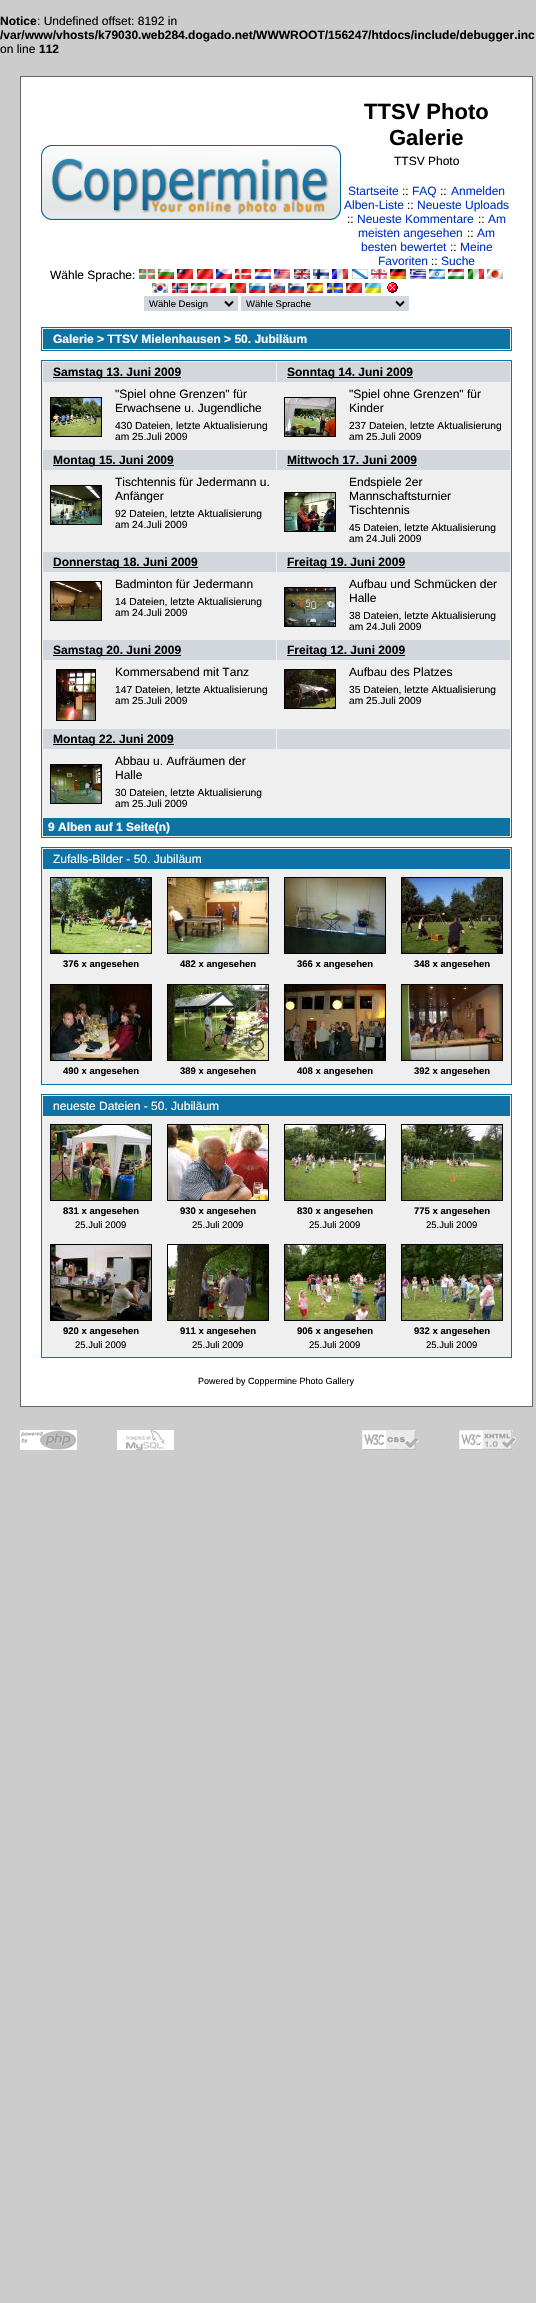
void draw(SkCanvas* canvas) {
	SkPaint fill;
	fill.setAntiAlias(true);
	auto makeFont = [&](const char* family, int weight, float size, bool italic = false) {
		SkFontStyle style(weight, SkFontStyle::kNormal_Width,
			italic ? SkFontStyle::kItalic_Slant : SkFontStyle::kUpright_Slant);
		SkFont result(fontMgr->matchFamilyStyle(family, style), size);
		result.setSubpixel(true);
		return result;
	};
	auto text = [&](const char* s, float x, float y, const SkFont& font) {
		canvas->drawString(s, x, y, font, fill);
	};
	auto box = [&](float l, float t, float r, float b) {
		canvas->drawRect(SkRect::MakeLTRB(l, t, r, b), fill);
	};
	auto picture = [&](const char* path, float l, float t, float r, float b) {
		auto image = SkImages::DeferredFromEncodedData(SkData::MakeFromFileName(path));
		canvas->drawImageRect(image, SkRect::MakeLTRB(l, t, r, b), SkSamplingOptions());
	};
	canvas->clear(0xFFCCCCCC);
	fill.setColor(0xFFFFFFFF);
	canvas->drawRect(SkRect::MakeLTRB(20.5f, 76.5f, 532.5f, 1406.5f), fill);
	fill.setStyle(SkPaint::kStroke_Style);
	fill.setStrokeWidth(1);
	fill.setColor(0xFF666666);
	canvas->drawRect(SkRect::MakeLTRB(20.5f, 76.5f, 532.5f, 1406.5f), fill);
	picture("image0.png", 41, 145, 341, 220);
	picture("image1.png", 139, 269, 155, 279);
	picture("image2.png", 158, 269, 174, 279);
	picture("image3.png", 177, 269, 193, 279);
	picture("image4.png", 197, 269, 213, 279);
	picture("image5.png", 216, 269, 232, 279);
	picture("image6.png", 235, 269, 251, 279);
	picture("image7.png", 255, 269, 271, 279);
	picture("image8.png", 274, 269, 290, 279);
	picture("image9.png", 294, 269, 310, 279);
	picture("image10.png", 313, 269, 329, 279);
	picture("image11.png", 332, 269, 348, 279);
	picture("image12.png", 352, 269, 368, 279);
	picture("image13.png", 371, 269, 387, 279);
	picture("image14.png", 390, 269, 406, 279);
	picture("image15.png", 410, 269, 426, 279);
	picture("image16.png", 429, 269, 445, 279);
	picture("image17.png", 448, 269, 464, 279);
	picture("image18.png", 468, 269, 484, 279);
	picture("image19.png", 487, 269, 503, 279);
	picture("image20.png", 152, 283, 168, 293);
	picture("image21.png", 172, 283, 188, 293);
	picture("image22.png", 191, 283, 207, 293);
	picture("image23.png", 210, 283, 226, 293);
	picture("image24.png", 230, 283, 246, 293);
	picture("image25.png", 249, 283, 265, 293);
	picture("image26.png", 269, 283, 285, 293);
	picture("image27.png", 288, 283, 304, 293);
	picture("image28.png", 307, 283, 323, 293);
	picture("image29.png", 327, 283, 343, 293);
	picture("image30.png", 346, 283, 362, 293);
	picture("image31.png", 365, 283, 381, 293);
	picture("image32.png", 387, 282, 398, 293);
	fill.setStyle(SkPaint::kFill_Style);
	fill.setColor(0xFFD1D7DC);
	box(144, 296, 238, 311);
	fill.setStyle(SkPaint::kStroke_Style);
	fill.setStrokeWidth(2);
	fill.setColor(0xFF000000);
	canvas->drawPath(SkPathBuilder().moveTo(225, 301.5f).lineTo(229, 305.5f).lineTo(233, 301.5f).detach(), fill);
	fill.setStyle(SkPaint::kFill_Style);
	fill.setColor(0xFFD1D7DC);
	box(241, 296, 409, 311);
	fill.setStyle(SkPaint::kStroke_Style);
	fill.setColor(0xFF000000);
	canvas->drawPath(SkPathBuilder().moveTo(396, 301.5f).lineTo(400, 305.5f).lineTo(404, 301.5f).detach(), fill);
	fill.setStyle(SkPaint::kFill_Style);
	fill.setColor(0xFFEFEFEF);
	canvas->drawRect(SkRect::MakeLTRB(41.5f, 327.5f, 511.5f, 350.5f), fill);
	fill.setStyle(SkPaint::kStroke_Style);
	fill.setStrokeWidth(1);
	fill.setColor(0xFF0E72A4);
	canvas->drawRect(SkRect::MakeLTRB(41.5f, 327.5f, 511.5f, 350.5f), fill);
	fill.setStyle(SkPaint::kFill_Style);
	box(43, 329, 510, 349);
	fill.setColor(0xFFEFEFEF);
	canvas->drawRect(SkRect::MakeLTRB(41.5f, 360.5f, 511.5f, 837.5f), fill);
	fill.setStyle(SkPaint::kStroke_Style);
	fill.setColor(0xFF0E72A4);
	canvas->drawRect(SkRect::MakeLTRB(41.5f, 360.5f, 511.5f, 837.5f), fill);
	fill.setStyle(SkPaint::kFill_Style);
	fill.setColor(0xFFD1D7DC);
	box(43, 362, 276, 382);
	fill.setColor(0xFF000000);
	box(53, 377, 181, 378);
	fill.setStyle(SkPaint::kStroke_Style);
	canvas->drawRect(SkRect::MakeLTRB(50.5f, 397.5f, 101.5f, 436.5f), fill);
	picture("image33.png", 51, 398, 101, 436);
	fill.setStyle(SkPaint::kFill_Style);
	fill.setColor(0xFFD1D7DC);
	box(277, 362, 510, 382);
	fill.setColor(0xFF000000);
	box(287, 377, 413, 378);
	fill.setStyle(SkPaint::kStroke_Style);
	canvas->drawRect(SkRect::MakeLTRB(284.5f, 397.5f, 335.5f, 436.5f), fill);
	picture("image34.png", 285, 398, 335, 436);
	fill.setStyle(SkPaint::kFill_Style);
	fill.setColor(0xFFD1D7DC);
	box(43, 450, 276, 470);
	fill.setColor(0xFF000000);
	box(53, 465, 174, 466);
	fill.setStyle(SkPaint::kStroke_Style);
	canvas->drawRect(SkRect::MakeLTRB(50.5f, 485.5f, 101.5f, 524.5f), fill);
	picture("image35.png", 51, 486, 101, 524);
	fill.setStyle(SkPaint::kFill_Style);
	fill.setColor(0xFFD1D7DC);
	box(277, 450, 510, 470);
	fill.setColor(0xFF000000);
	box(287, 465, 417, 466);
	fill.setStyle(SkPaint::kStroke_Style);
	canvas->drawRect(SkRect::MakeLTRB(284.5f, 492.5f, 335.5f, 531.5f), fill);
	picture("image36.png", 285, 493, 335, 531);
	fill.setStyle(SkPaint::kFill_Style);
	fill.setColor(0xFFD1D7DC);
	box(43, 552, 276, 572);
	fill.setColor(0xFF000000);
	box(53, 567, 198, 568);
	fill.setStyle(SkPaint::kStroke_Style);
	canvas->drawRect(SkRect::MakeLTRB(50.5f, 581.5f, 101.5f, 620.5f), fill);
	picture("image37.png", 51, 582, 101, 620);
	fill.setStyle(SkPaint::kFill_Style);
	fill.setColor(0xFFD1D7DC);
	box(277, 552, 510, 572);
	fill.setColor(0xFF000000);
	box(287, 567, 405, 568);
	fill.setStyle(SkPaint::kStroke_Style);
	canvas->drawRect(SkRect::MakeLTRB(284.5f, 587.5f, 335.5f, 626.5f), fill);
	picture("image38.png", 285, 588, 335, 626);
	fill.setStyle(SkPaint::kFill_Style);
	fill.setColor(0xFFD1D7DC);
	box(43, 640, 276, 660);
	fill.setColor(0xFF000000);
	box(53, 655, 181, 656);
	fill.setStyle(SkPaint::kStroke_Style);
	canvas->drawRect(SkRect::MakeLTRB(56.5f, 669.5f, 95.5f, 720.5f), fill);
	picture("image39.png", 57, 670, 95, 720);
	fill.setStyle(SkPaint::kFill_Style);
	fill.setColor(0xFFD1D7DC);
	box(277, 640, 510, 660);
	fill.setColor(0xFF000000);
	box(287, 655, 405, 656);
	fill.setStyle(SkPaint::kStroke_Style);
	canvas->drawRect(SkRect::MakeLTRB(284.5f, 669.5f, 335.5f, 708.5f), fill);
	picture("image40.png", 285, 670, 335, 708);
	fill.setStyle(SkPaint::kFill_Style);
	fill.setColor(0xFFD1D7DC);
	box(43, 729, 276, 749);
	fill.setColor(0xFF000000);
	box(53, 744, 174, 745);
	fill.setStyle(SkPaint::kStroke_Style);
	canvas->drawRect(SkRect::MakeLTRB(50.5f, 764.5f, 101.5f, 803.5f), fill);
	picture("image41.png", 51, 765, 101, 803);
	fill.setStyle(SkPaint::kFill_Style);
	fill.setColor(0xFFD1D7DC);
	box(277, 729, 510, 749);
	fill.setColor(0xFF0E72A4);
	box(43, 818, 510, 836);
	fill.setColor(0xFFEFEFEF);
	canvas->drawRect(SkRect::MakeLTRB(41.5f, 847.5f, 511.5f, 1084.5f), fill);
	fill.setStyle(SkPaint::kStroke_Style);
	fill.setColor(0xFF0E72A4);
	canvas->drawRect(SkRect::MakeLTRB(41.5f, 847.5f, 511.5f, 1084.5f), fill);
	fill.setStyle(SkPaint::kFill_Style);
	box(43, 849, 510, 869);
	fill.setStyle(SkPaint::kStroke_Style);
	fill.setColor(0xFF000000);
	canvas->drawRect(SkRect::MakeLTRB(50.5f, 877.5f, 151.5f, 953.5f), fill);
	picture("image42.png", 51, 878, 151, 953);
	canvas->drawRect(SkRect::MakeLTRB(167.5f, 877.5f, 268.5f, 953.5f), fill);
	picture("image43.png", 168, 878, 268, 953);
	canvas->drawRect(SkRect::MakeLTRB(284.5f, 877.5f, 385.5f, 953.5f), fill);
	picture("image44.png", 285, 878, 385, 953);
	canvas->drawRect(SkRect::MakeLTRB(401.5f, 877.5f, 502.5f, 953.5f), fill);
	picture("image45.png", 402, 878, 502, 953);
	canvas->drawRect(SkRect::MakeLTRB(50.5f, 984.5f, 151.5f, 1060.5f), fill);
	picture("image46.png", 51, 985, 151, 1060);
	canvas->drawRect(SkRect::MakeLTRB(167.5f, 984.5f, 268.5f, 1060.5f), fill);
	picture("image47.png", 168, 985, 268, 1060);
	canvas->drawRect(SkRect::MakeLTRB(284.5f, 984.5f, 385.5f, 1060.5f), fill);
	picture("image48.png", 285, 985, 385, 1060);
	canvas->drawRect(SkRect::MakeLTRB(401.5f, 984.5f, 502.5f, 1060.5f), fill);
	picture("image49.png", 402, 985, 502, 1060);
	fill.setStyle(SkPaint::kFill_Style);
	fill.setColor(0xFFEFEFEF);
	canvas->drawRect(SkRect::MakeLTRB(41.5f, 1094.5f, 511.5f, 1357.5f), fill);
	fill.setStyle(SkPaint::kStroke_Style);
	fill.setColor(0xFF0E72A4);
	canvas->drawRect(SkRect::MakeLTRB(41.5f, 1094.5f, 511.5f, 1357.5f), fill);
	fill.setStyle(SkPaint::kFill_Style);
	box(43, 1096, 510, 1116);
	fill.setStyle(SkPaint::kStroke_Style);
	fill.setColor(0xFF000000);
	canvas->drawRect(SkRect::MakeLTRB(50.5f, 1124.5f, 151.5f, 1200.5f), fill);
	picture("image50.png", 51, 1125, 151, 1200);
	canvas->drawRect(SkRect::MakeLTRB(167.5f, 1124.5f, 268.5f, 1200.5f), fill);
	picture("image51.png", 168, 1125, 268, 1200);
	canvas->drawRect(SkRect::MakeLTRB(284.5f, 1124.5f, 385.5f, 1200.5f), fill);
	picture("image52.png", 285, 1125, 385, 1200);
	canvas->drawRect(SkRect::MakeLTRB(401.5f, 1124.5f, 502.5f, 1200.5f), fill);
	picture("image53.png", 402, 1125, 502, 1200);
	canvas->drawRect(SkRect::MakeLTRB(50.5f, 1244.5f, 151.5f, 1320.5f), fill);
	picture("image54.png", 51, 1245, 151, 1320);
	canvas->drawRect(SkRect::MakeLTRB(167.5f, 1244.5f, 268.5f, 1320.5f), fill);
	picture("image55.png", 168, 1245, 268, 1320);
	canvas->drawRect(SkRect::MakeLTRB(284.5f, 1244.5f, 385.5f, 1320.5f), fill);
	picture("image56.png", 285, 1245, 385, 1320);
	canvas->drawRect(SkRect::MakeLTRB(401.5f, 1244.5f, 502.5f, 1320.5f), fill);
	picture("image57.png", 402, 1245, 502, 1320);
	picture("image58.png", 20, 1430, 77, 1450);
	picture("image59.png", 117, 1430, 174, 1450);
	picture("image60.png", 362, 1430, 419, 1450);
	picture("image61.png", 459, 1430, 516, 1450);
	auto font1 = makeFont("Liberation Sans", 700, 12);
	fill.setStyle(SkPaint::kFill_Style);
	text("Notice", 0, 25, font1);
	auto font2 = makeFont("Liberation Sans", 400, 12);
	text(": Undefined offset: 8192 in", 37, 25, font2);
	text("/var/www/vhosts/k79030.web284.dogado.net/WWWROOT/156247/htdocs/include/debugger.inc", 0, 39, font1);
	text("on line", 0, 53, font2);
	text("112", 39, 53, font1);
	auto font3 = makeFont("Liberation Sans", 700, 22);
	text("TTSV Photo", 364, 119, font3);
	text("Galerie", 389, 145, font3);
	text("TTSV Photo", 394, 165, font2);
	fill.setColor(0xFF0033CC);
	text("Startseite", 348, 195, font2);
	fill.setColor(0xFF000000);
	text("::", 402, 195, font2);
	fill.setColor(0xFF0033CC);
	text("FAQ", 412, 195, font2);
	fill.setColor(0xFF000000);
	text("::", 440, 195, font2);
	fill.setColor(0xFF0033CC);
	text("Anmelden", 451, 195, font2);
	text("Alben-Liste", 344, 209, font2);
	fill.setColor(0xFF000000);
	text("::", 407, 209, font2);
	fill.setColor(0xFF0033CC);
	text("Neueste Uploads", 417, 209, font2);
	fill.setColor(0xFF000000);
	text("::", 347, 223, font2);
	fill.setColor(0xFF0033CC);
	text("Neueste Kommentare", 357, 223, font2);
	fill.setColor(0xFF000000);
	text("::", 478, 223, font2);
	fill.setColor(0xFF0033CC);
	text("Am", 488, 223, font2);
	text("meisten angesehen", 358, 237, font2);
	fill.setColor(0xFF000000);
	text("::", 467, 237, font2);
	fill.setColor(0xFF0033CC);
	text("Am", 477, 237, font2);
	text("besten bewertet", 361, 251, font2);
	fill.setColor(0xFF000000);
	text("::", 450, 251, font2);
	fill.setColor(0xFF0033CC);
	text("Meine", 460, 251, font2);
	text("Favoriten", 378, 265, font2);
	fill.setColor(0xFF000000);
	text("::", 431, 265, font2);
	fill.setColor(0xFF0033CC);
	text("Suche", 441, 265, font2);
	fill.setColor(0xFF000000);
	text("Wähle Sprache:", 50, 279, font2);
	auto font4 = makeFont("Liberation Sans", 400, 9.5f);
	text("Wähle Design", 149, 307, font4);
	text("Wähle Sprache", 246, 307, font4);
	fill.setColor(0xFFFFFFFF);
	text("Galerie > TTSV Mielenhausen > 50. Jubiläum", 53, 343, font1);
	fill.setColor(0xFF000000);
	text("Samstag 13. Juni 2009", 53, 376, font1);
	text("\"Spiel ohne Grenzen\" für", 115, 398, font2);
	text("Erwachsene u. Jugendliche", 115, 412, font2);
	auto font5 = makeFont("Liberation Sans", 400, 10.25f);
	text("430 Dateien, letzte Aktualisierung", 115, 429, font5);
	text("am 25.Juli 2009", 115, 440, font5);
	text("Sonntag 14. Juni 2009", 287, 376, font1);
	text("\"Spiel ohne Grenzen\" für", 349, 398, font2);
	text("Kinder", 349, 412, font2);
	text("237 Dateien, letzte Aktualisierung", 349, 429, font5);
	text("am 25.Juli 2009", 349, 440, font5);
	text("Montag 15. Juni 2009", 53, 464, font1);
	text("Tischtennis für Jedermann u.", 115, 486, font2);
	text("Anfänger", 115, 500, font2);
	text("92 Dateien, letzte Aktualisierung", 115, 517, font5);
	text("am 24.Juli 2009", 115, 528, font5);
	text("Mittwoch 17. Juni 2009", 287, 464, font1);
	text("Endspiele 2er", 349, 486, font2);
	text("Mannschaftsturnier", 349, 500, font2);
	text("Tischtennis", 349, 514, font2);
	text("45 Dateien, letzte Aktualisierung", 349, 531, font5);
	text("am 24.Juli 2009", 349, 542, font5);
	text("Donnerstag 18. Juni 2009", 53, 566, font1);
	text("Badminton für Jedermann", 115, 588, font2);
	text("14 Dateien, letzte Aktualisierung", 115, 605, font5);
	text("am 24.Juli 2009", 115, 616, font5);
	text("Freitag 19. Juni 2009", 287, 566, font1);
	text("Aufbau und Schmücken der", 349, 588, font2);
	text("Halle", 349, 602, font2);
	text("38 Dateien, letzte Aktualisierung", 349, 619, font5);
	text("am 24.Juli 2009", 349, 630, font5);
	text("Samstag 20. Juni 2009", 53, 654, font1);
	text("Kommersabend mit Tanz", 115, 676, font2);
	text("147 Dateien, letzte Aktualisierung", 115, 693, font5);
	text("am 25.Juli 2009", 115, 704, font5);
	text("Freitag 12. Juni 2009", 287, 654, font1);
	text("Aufbau des Platzes", 349, 676, font2);
	text("35 Dateien, letzte Aktualisierung", 349, 693, font5);
	text("am 25.Juli 2009", 349, 704, font5);
	text("Montag 22. Juni 2009", 53, 743, font1);
	text("Abbau u. Aufräumen der", 115, 765, font2);
	text("Halle", 115, 779, font2);
	text("30 Dateien, letzte Aktualisierung", 115, 796, font5);
	text("am 25.Juli 2009", 115, 807, font5);
	fill.setColor(0xFFFFFFFF);
	text("9 Alben auf 1 Seite(n)", 48, 831, font1);
	text("Zufalls-Bilder - 50. Jubiläum", 53, 863, font2);
	auto font6 = makeFont("Liberation Sans", 700, 9.5f);
	fill.setColor(0xFF000000);
	text("376 x angesehen", 63, 967, font6);
	text("482 x angesehen", 180, 967, font6);
	text("366 x angesehen", 297, 967, font6);
	text("348 x angesehen", 414, 967, font6);
	text("490 x angesehen", 63, 1074, font6);
	text("389 x angesehen", 180, 1074, font6);
	text("408 x angesehen", 297, 1074, font6);
	text("392 x angesehen", 414, 1074, font6);
	fill.setColor(0xFFFFFFFF);
	text("neueste Dateien - 50. Jubiläum", 53, 1110, font2);
	fill.setColor(0xFF000000);
	text("831 x angesehen", 63, 1214, font6);
	text("25.Juli 2009", 75, 1228, font4);
	text("930 x angesehen", 180, 1214, font6);
	text("25.Juli 2009", 192, 1228, font4);
	text("830 x angesehen", 297, 1214, font6);
	text("25.Juli 2009", 309, 1228, font4);
	text("775 x angesehen", 414, 1214, font6);
	text("25.Juli 2009", 426, 1228, font4);
	text("920 x angesehen", 63, 1334, font6);
	text("25.Juli 2009", 75, 1348, font4);
	text("911 x angesehen", 180, 1334, font6);
	text("25.Juli 2009", 192, 1348, font4);
	text("906 x angesehen", 297, 1334, font6);
	text("25.Juli 2009", 309, 1348, font4);
	text("932 x angesehen", 414, 1334, font6);
	text("25.Juli 2009", 426, 1348, font4);
	auto font7 = makeFont("Liberation Sans", 400, 9);
	text("Powered by Coppermine Photo Gallery", 198, 1384, font7);
}
